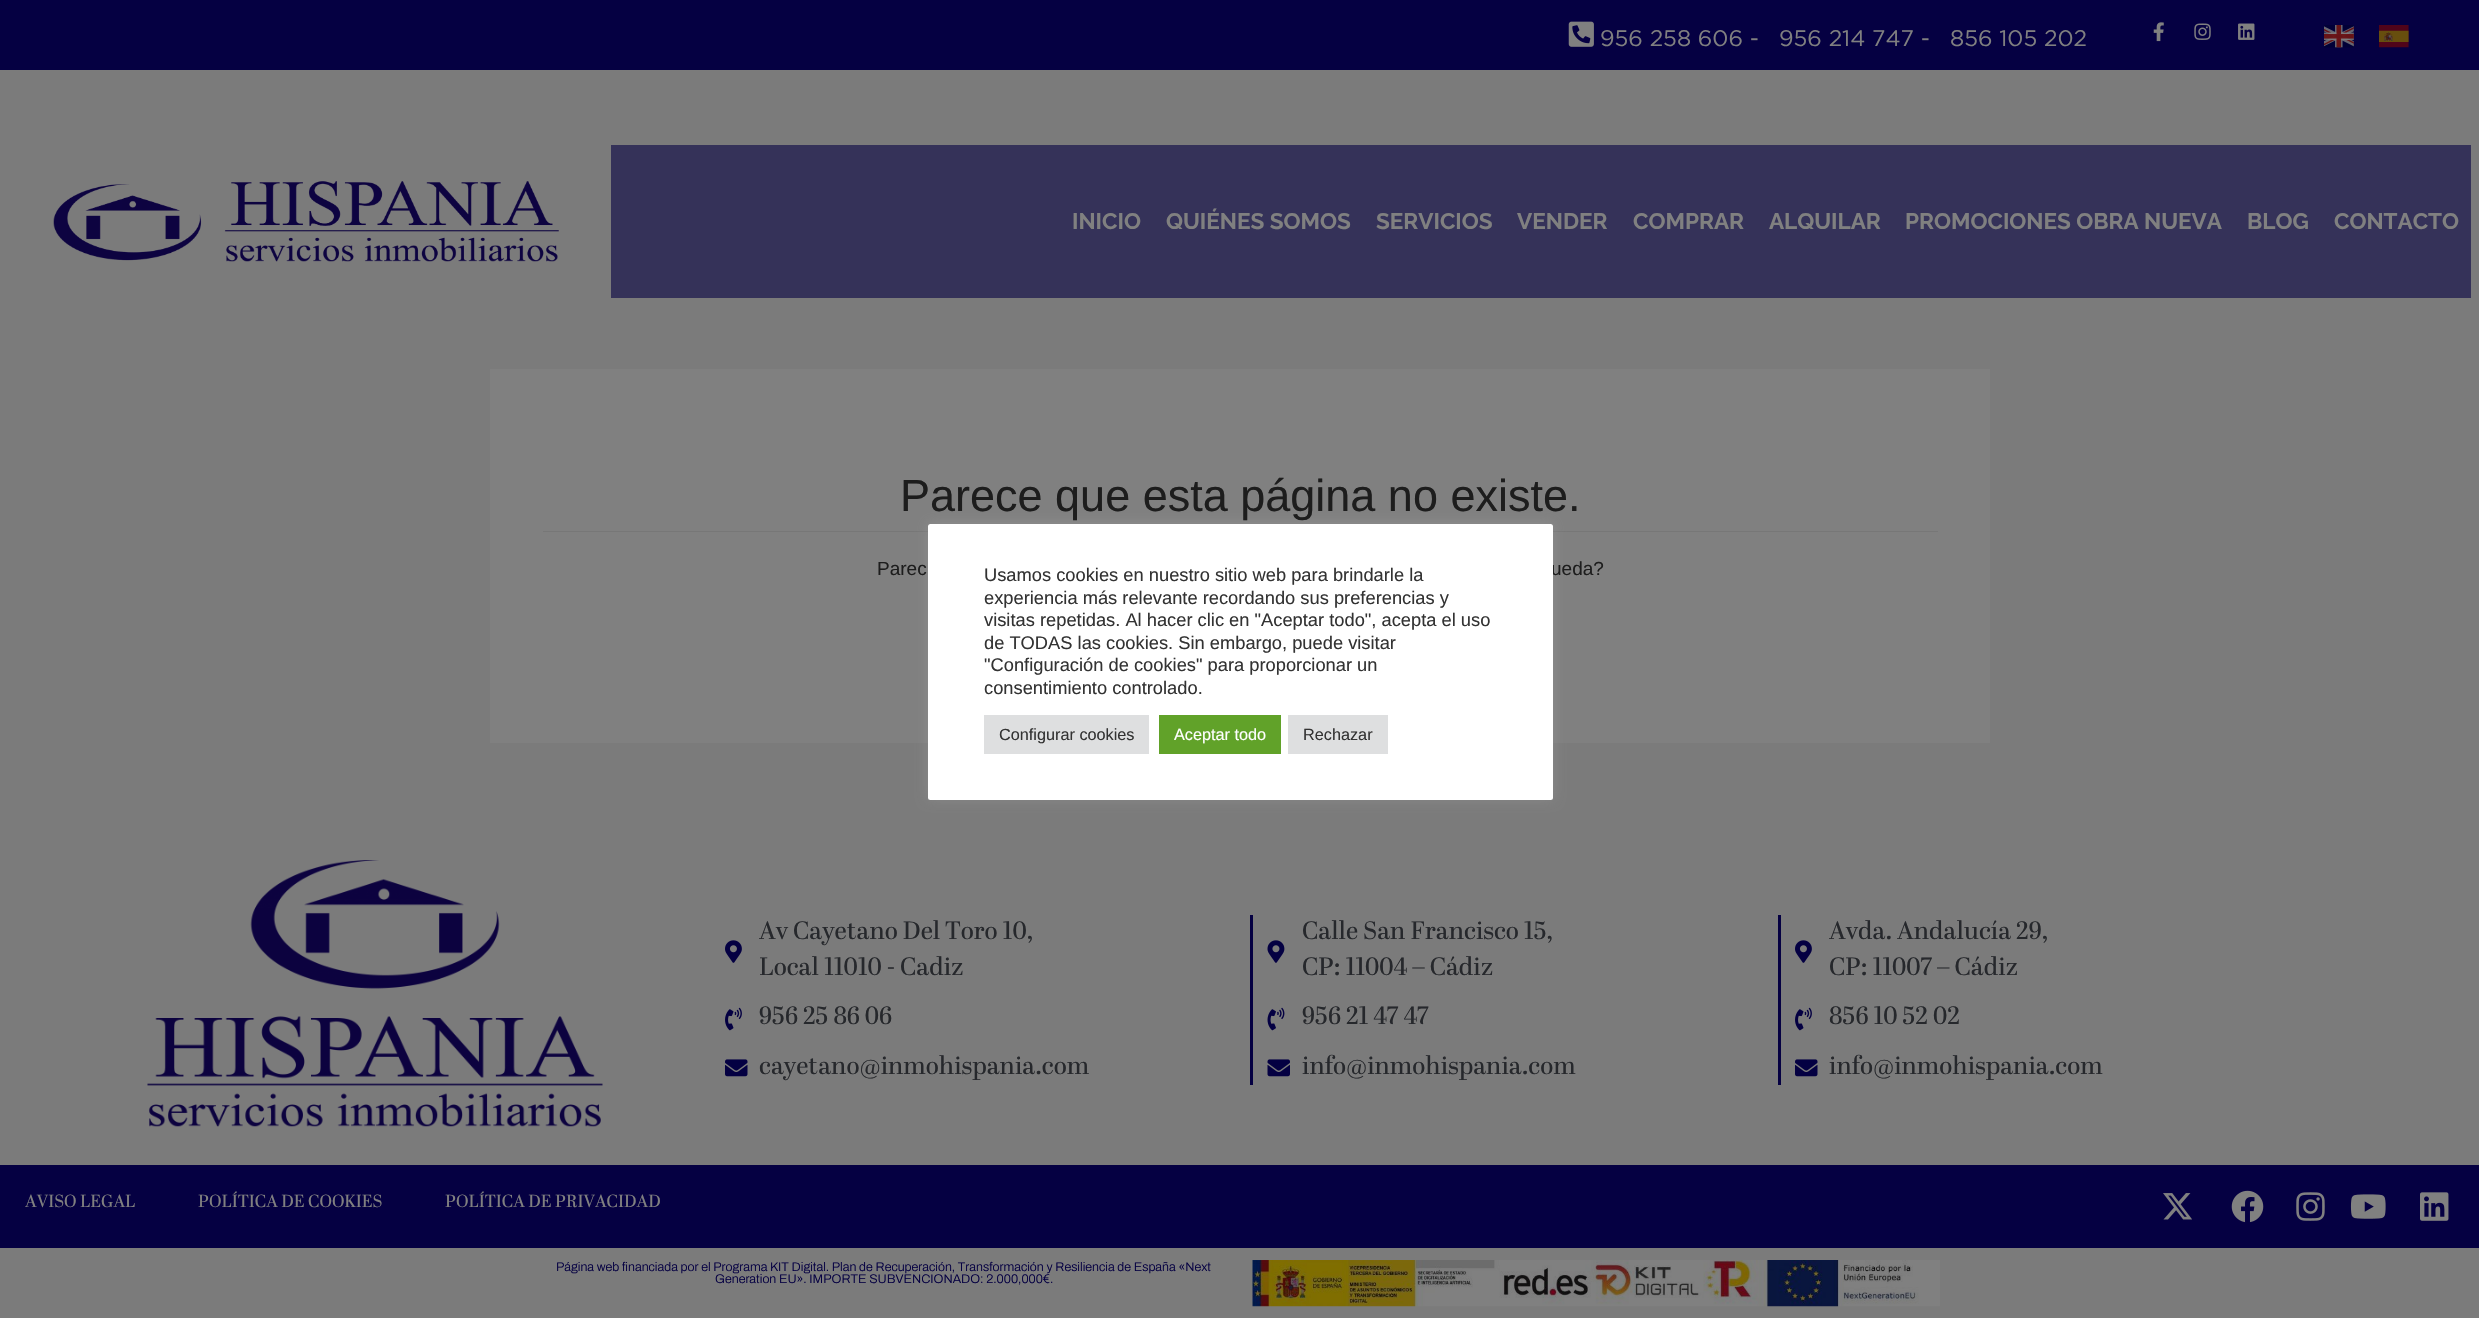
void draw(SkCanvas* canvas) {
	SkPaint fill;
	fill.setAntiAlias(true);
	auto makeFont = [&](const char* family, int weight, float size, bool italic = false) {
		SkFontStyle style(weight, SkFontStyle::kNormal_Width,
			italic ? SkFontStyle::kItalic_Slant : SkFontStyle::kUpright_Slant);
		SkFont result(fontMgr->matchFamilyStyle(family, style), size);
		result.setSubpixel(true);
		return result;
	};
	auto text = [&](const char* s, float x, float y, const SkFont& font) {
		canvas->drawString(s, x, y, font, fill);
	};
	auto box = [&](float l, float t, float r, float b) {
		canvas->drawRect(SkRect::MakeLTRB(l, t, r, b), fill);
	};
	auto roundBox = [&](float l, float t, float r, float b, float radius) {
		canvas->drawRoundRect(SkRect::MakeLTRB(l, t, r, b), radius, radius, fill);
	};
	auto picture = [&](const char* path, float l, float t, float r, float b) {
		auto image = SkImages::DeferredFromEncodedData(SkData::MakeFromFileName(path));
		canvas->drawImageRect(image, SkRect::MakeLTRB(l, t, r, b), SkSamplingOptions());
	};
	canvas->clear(0xFF7B7B7B);
	fill.setColor(0xFF050042);
	box(0, 0, 2479, 70);
	picture("image0.png", 1568, 21, 1594, 47);
	picture("image1.png", 2153, 22, 2164, 42);
	picture("image2.png", 2194, 23, 2211, 40);
	picture("image3.png", 2238, 23, 2255, 40);
	picture("image4.png", 2324, 25, 2354, 48);
	picture("image5.png", 2379, 25, 2409, 48);
	picture("image6.png", 53, 181, 559, 262);
	fill.setColor(0xFF353259);
	box(611, 145, 2471, 298);
	fill.setColor(0xFF808080);
	box(490, 369, 1990, 743);
	fill.setColor(0xFF777777);
	box(543, 531, 1938, 532);
	picture("image7.png", 147, 860, 603, 1127);
	fill.setColor(0xFF050042);
	box(1250, 915, 1253, 1085);
	picture("image8.png", 725, 940, 742, 963);
	picture("image9.png", 725, 1007, 742, 1031);
	picture("image10.png", 725, 1059, 748, 1077);
	box(1778, 915, 1781, 1085);
	picture("image11.png", 1267, 940, 1285, 963);
	picture("image12.png", 1267, 1007, 1285, 1031);
	picture("image13.png", 1267, 1059, 1290, 1077);
	picture("image8.png", 1795, 940, 1812, 963);
	picture("image9.png", 1795, 1007, 1812, 1031);
	picture("image10.png", 1795, 1059, 1818, 1077);
	box(0, 1165, 2479, 1248);
	picture("image14.png", 2163, 1193, 2192, 1220);
	picture("image15.png", 2231, 1190, 2264, 1223);
	picture("image16.png", 2296, 1192, 2325, 1221);
	picture("image17.png", 2350, 1194, 2386, 1219);
	picture("image18.png", 2420, 1192, 2449, 1221);
	picture("image19.png", 1252, 1260, 1940, 1307);
	fill.setColor(0x4DACABAB);
	fill.setMaskFilter(SkMaskFilter::MakeBlur(kNormal_SkBlurStyle, 6));
	canvas->drawRoundRect(SkRect::MakeLTRB(928, 523, 1553, 799), 2.5f, 2.5f, fill);
	fill.setMaskFilter(nullptr);
	auto font1 = makeFont("Gotham", 400, 22.5f);
	fill.setColor(0xFF808080);
	text("956 258 606 -", 1600, 46, font1);
	text("956 214 747 -", 1779, 46, font1);
	text("856 105 202", 1950, 46, font1);
	auto font2 = makeFont("Raleway", 700, 22.5f);
	text("INICIO", 1072, 229, font2);
	text("QUIÉNES SOMOS", 1166, 229, font2);
	text("SERVICIOS", 1376, 229, font2);
	text("VENDER", 1517, 229, font2);
	text("COMPRAR", 1633, 229, font2);
	text("ALQUILAR", 1769, 229, font2);
	text("PROMOCIONES OBRA NUEVA", 1905, 229, font2);
	text("BLOG", 2247, 229, font2);
	text("CONTACTO", 2334, 229, font2);
	auto font3 = makeFont("Liberation Sans", 400, 45);
	fill.setColor(0xFF1D1D1D);
	text("Parece que esta página no existe.", 900, 511, font3);
	auto font4 = makeFont("Liberation Sans", 400, 19);
	text("Parec", 877, 575, font4);
	text("ueda?", 1551, 575, font4);
	auto font5 = makeFont("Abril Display", 400, 25);
	fill.setColor(0xFF26282C);
	text("Av Cayetano Del Toro 10,", 759, 939, font5);
	text("Local 11010 - Cadiz", 759, 975, font5);
	text("956 25 86 06", 759, 1024, font5);
	text("cayetano@inmohispania.com", 759, 1074, font5);
	text("Calle San Francisco 15,", 1302, 939, font5);
	text("CP: 11004 – Cádiz", 1302, 975, font5);
	text("956 21 47 47", 1302, 1024, font5);
	text("info@inmohispania.com", 1302, 1074, font5);
	text("Avda. Andalucía 29,", 1829, 939, font5);
	text("CP: 11007 – Cádiz", 1829, 975, font5);
	text("856 10 52 02", 1829, 1024, font5);
	text("info@inmohispania.com", 1829, 1074, font5);
	auto font6 = makeFont("Abril Display", 400, 17.5f);
	fill.setColor(0xFF808080);
	text("AVISO LEGAL", 25, 1207, font6);
	text("POLÍTICA DE COOKIES", 198, 1207, font6);
	text("POLÍTICA DE PRIVACIDAD", 445, 1207, font6);
	auto font7 = makeFont("Archivo", 300, 12.5f);
	fill.setColor(0xFF050042);
	text("Página web financiada por el Programa KIT Digital. Plan de Recuperación, Transformación y Resiliencia de España «Next", 556, 1271, font7);
	text("Generation EU». IMPORTE SUBVENCIONADO: 2.000,000€.", 715, 1283, font7);
	fill.setColor(0xFFFFFFFF);
	roundBox(928, 524, 1553, 800, 2.5f);
	auto font8 = makeFont("Liberation Sans", 400, 18.3f);
	fill.setColor(0xFF333333);
	text("Usamos cookies en nuestro sitio web para brindarle la", 984, 581, font8);
	text("experiencia más relevante recordando sus preferencias y", 984, 604, font8);
	text("visitas repetidas. Al hacer clic en \"Aceptar todo\", acepta el uso", 984, 626, font8);
	text("de TODAS las cookies. Sin embargo, puede visitar", 984, 649, font8);
	text("\"Configuración de cookies\" para proporcionar un", 984, 671, font8);
	text("consentimiento controlado.", 984, 694, font8);
	fill.setColor(0xFFDEDFE0);
	box(984, 715, 1149, 754);
	auto font9 = makeFont("Liberation Sans", 400, 16.25f);
	fill.setColor(0xFF333333);
	text("Configurar cookies", 999, 740, font9);
	fill.setColor(0xFF61A229);
	box(1159, 715, 1281, 754);
	fill.setColor(0xFFFFFFFF);
	text("Aceptar todo", 1174, 740, font9);
	fill.setColor(0xFFDEDFE0);
	box(1288, 715, 1388, 754);
	fill.setColor(0xFF333333);
	text("Rechazar", 1303, 740, font9);
}
